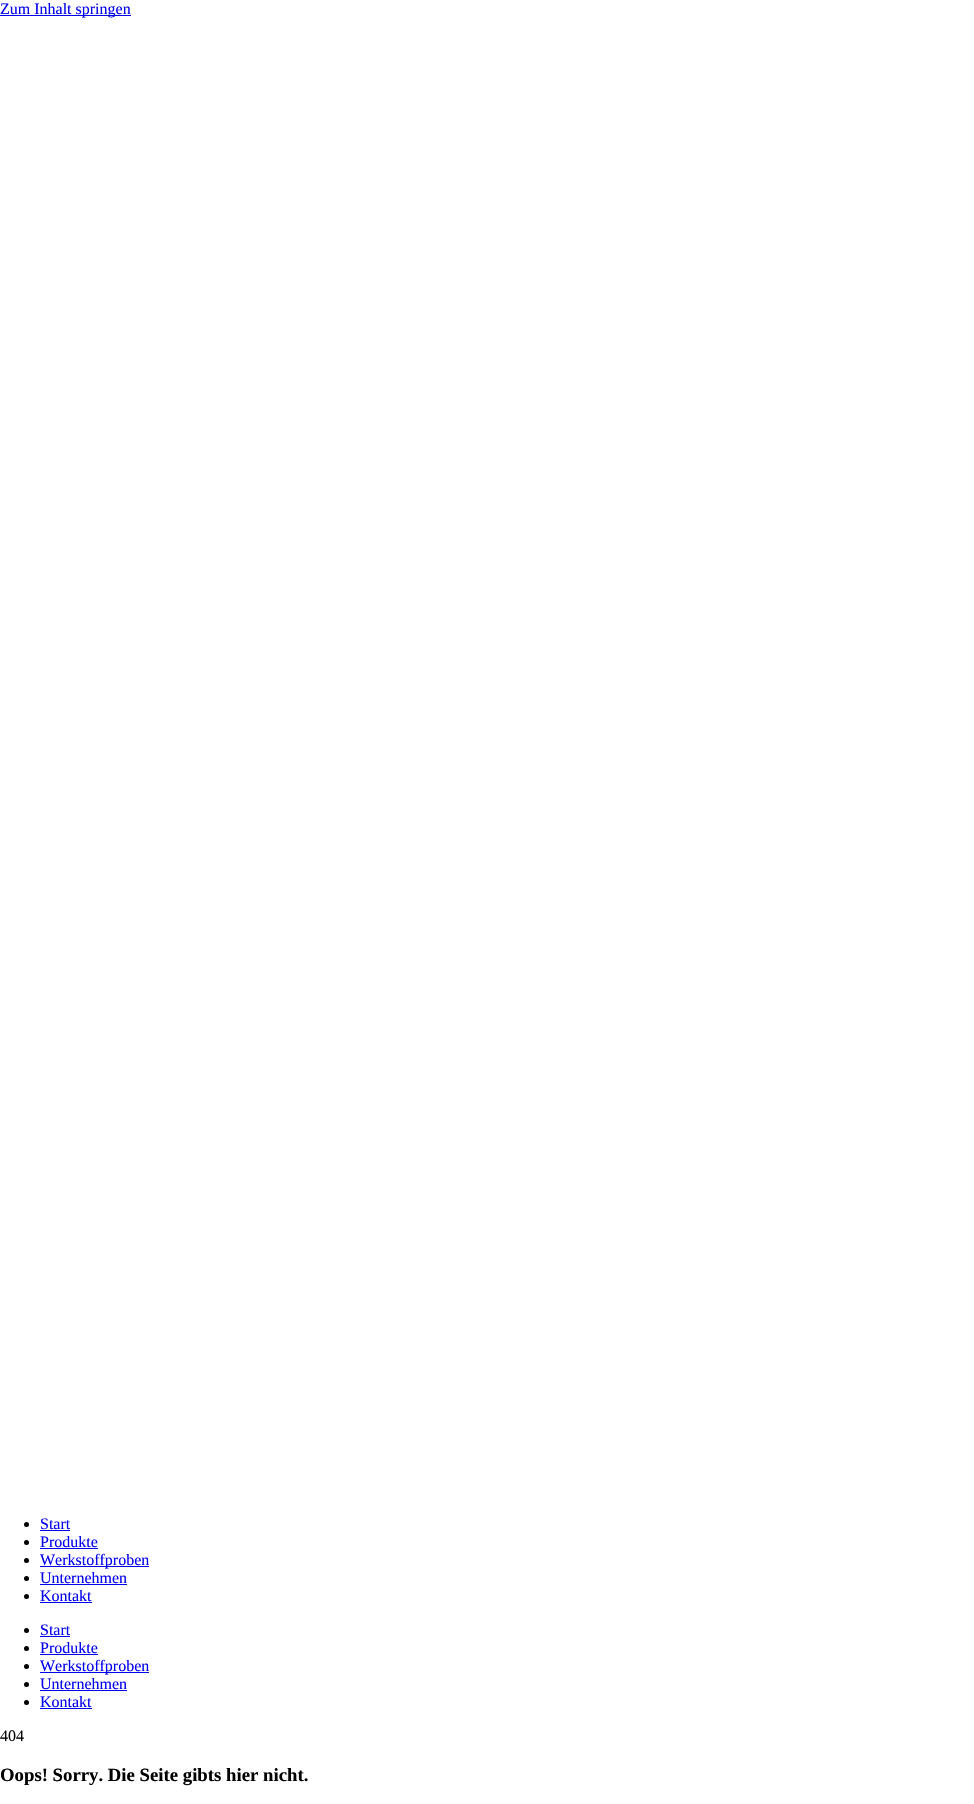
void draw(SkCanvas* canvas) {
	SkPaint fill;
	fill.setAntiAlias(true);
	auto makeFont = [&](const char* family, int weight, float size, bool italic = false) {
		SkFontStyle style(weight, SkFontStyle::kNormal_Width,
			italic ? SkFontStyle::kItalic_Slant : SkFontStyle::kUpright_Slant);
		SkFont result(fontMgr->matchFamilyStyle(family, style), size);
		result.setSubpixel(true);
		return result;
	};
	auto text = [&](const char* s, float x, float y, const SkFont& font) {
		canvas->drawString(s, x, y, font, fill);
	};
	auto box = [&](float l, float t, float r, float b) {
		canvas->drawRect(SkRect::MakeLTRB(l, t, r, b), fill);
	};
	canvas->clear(0xFFFFFFFF);
	fill.setColor(0xFF0000EE);
	box(0, 15, 131, 16);
	fill.setColor(0xFF000000);
	canvas->drawCircle(26.5f, 1524.5f, 2.5f, fill);
	fill.setColor(0xFF0000EE);
	box(40, 1530, 70, 1531);
	fill.setColor(0xFF000000);
	canvas->drawCircle(26.5f, 1542.5f, 2.5f, fill);
	fill.setColor(0xFF0000EE);
	box(40, 1548, 98, 1549);
	fill.setColor(0xFF000000);
	canvas->drawCircle(26.5f, 1560.5f, 2.5f, fill);
	fill.setColor(0xFF0000EE);
	box(40, 1566, 149, 1567);
	fill.setColor(0xFF000000);
	canvas->drawCircle(26.5f, 1578.5f, 2.5f, fill);
	fill.setColor(0xFF0000EE);
	box(40, 1584, 127, 1585);
	fill.setColor(0xFF000000);
	canvas->drawCircle(26.5f, 1596.5f, 2.5f, fill);
	fill.setColor(0xFF0000EE);
	box(40, 1602, 92, 1603);
	fill.setColor(0xFF000000);
	canvas->drawCircle(26.5f, 1630.5f, 2.5f, fill);
	fill.setColor(0xFF0000EE);
	box(40, 1636, 70, 1637);
	fill.setColor(0xFF000000);
	canvas->drawCircle(26.5f, 1648.5f, 2.5f, fill);
	fill.setColor(0xFF0000EE);
	box(40, 1654, 98, 1655);
	fill.setColor(0xFF000000);
	canvas->drawCircle(26.5f, 1666.5f, 2.5f, fill);
	fill.setColor(0xFF0000EE);
	box(40, 1672, 149, 1673);
	fill.setColor(0xFF000000);
	canvas->drawCircle(26.5f, 1684.5f, 2.5f, fill);
	fill.setColor(0xFF0000EE);
	box(40, 1690, 127, 1691);
	fill.setColor(0xFF000000);
	canvas->drawCircle(26.5f, 1702.5f, 2.5f, fill);
	fill.setColor(0xFF0000EE);
	box(40, 1708, 92, 1709);
	auto font1 = makeFont("Liberation Serif", 400, 16);
	text("Zum Inhalt springen", 0, 14, font1);
	text("Start", 40, 1529, font1);
	text("Produkte", 40, 1547, font1);
	text("Werkstoffproben", 40, 1565, font1);
	text("Unternehmen", 40, 1583, font1);
	text("Kontakt", 40, 1601, font1);
	text("Start", 40, 1635, font1);
	text("Produkte", 40, 1653, font1);
	text("Werkstoffproben", 40, 1671, font1);
	text("Unternehmen", 40, 1689, font1);
	text("Kontakt", 40, 1707, font1);
	fill.setColor(0xFF000000);
	text("404", 0, 1741, font1);
	auto font2 = makeFont("Liberation Serif", 700, 18.75f);
	text("Oops! Sorry. Die Seite gibts hier nicht.", 0, 1781, font2);
}
